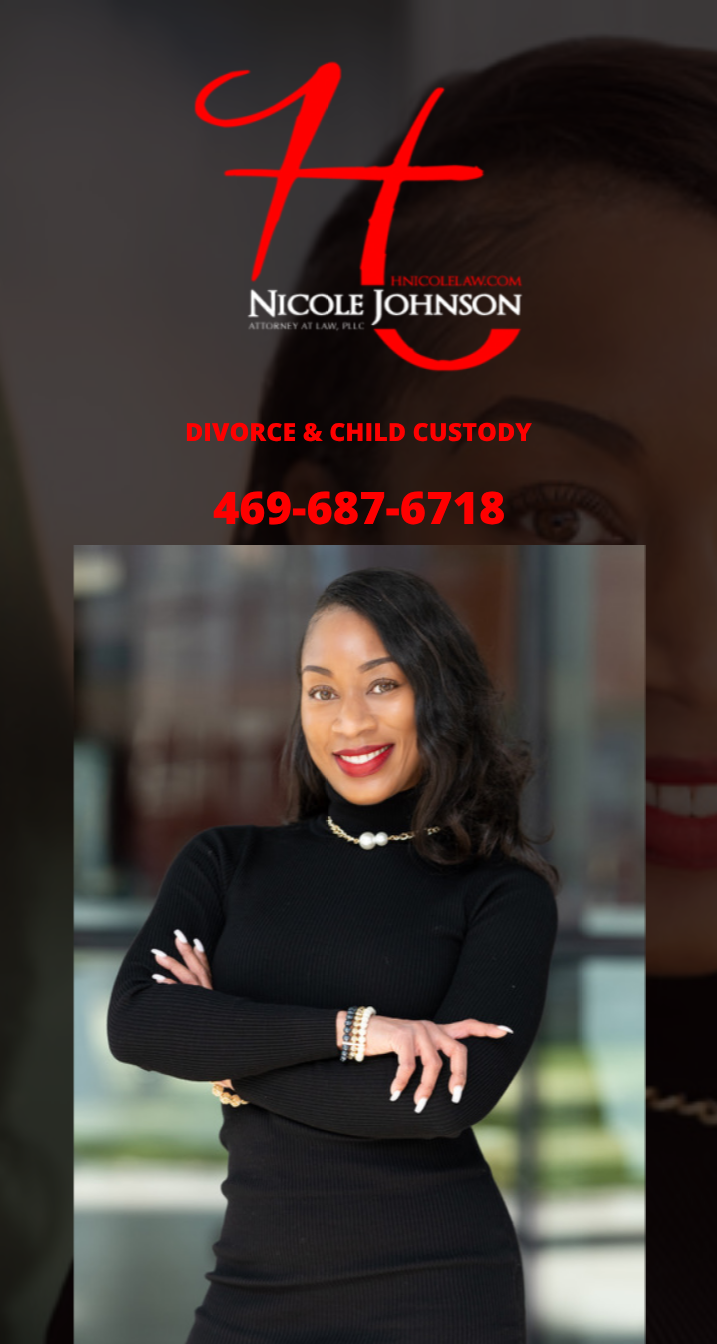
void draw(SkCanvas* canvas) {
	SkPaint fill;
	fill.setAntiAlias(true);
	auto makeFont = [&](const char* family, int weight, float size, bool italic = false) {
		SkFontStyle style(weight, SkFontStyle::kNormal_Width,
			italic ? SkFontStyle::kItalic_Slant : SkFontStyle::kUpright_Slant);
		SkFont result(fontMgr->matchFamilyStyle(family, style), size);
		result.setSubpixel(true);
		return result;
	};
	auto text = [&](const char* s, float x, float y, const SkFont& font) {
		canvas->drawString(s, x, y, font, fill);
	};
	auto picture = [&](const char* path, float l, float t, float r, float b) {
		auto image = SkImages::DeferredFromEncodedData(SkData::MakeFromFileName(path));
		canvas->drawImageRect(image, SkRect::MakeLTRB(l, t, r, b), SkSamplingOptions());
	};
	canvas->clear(0xFFFFFFFF);
	picture("image0.png", 0, 0, 717, 1344);
	picture("image1.png", 194, 61, 523, 372);
	picture("image2.png", 73, 545, 646, 1344);
	auto font1 = makeFont("Open Sans", 800, 25);
	fill.setColor(0xFFFF0000);
	text("DIVORCE & CHILD CUSTODY", 185, 441, font1);
	auto font2 = makeFont("Open Sans", 800, 45);
	text("469-687-6718", 213, 524, font2);
}
